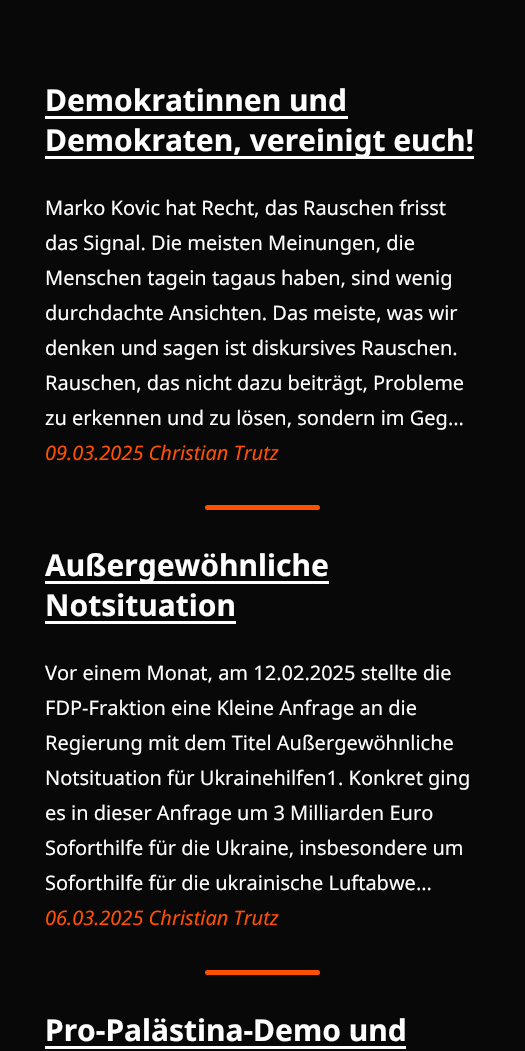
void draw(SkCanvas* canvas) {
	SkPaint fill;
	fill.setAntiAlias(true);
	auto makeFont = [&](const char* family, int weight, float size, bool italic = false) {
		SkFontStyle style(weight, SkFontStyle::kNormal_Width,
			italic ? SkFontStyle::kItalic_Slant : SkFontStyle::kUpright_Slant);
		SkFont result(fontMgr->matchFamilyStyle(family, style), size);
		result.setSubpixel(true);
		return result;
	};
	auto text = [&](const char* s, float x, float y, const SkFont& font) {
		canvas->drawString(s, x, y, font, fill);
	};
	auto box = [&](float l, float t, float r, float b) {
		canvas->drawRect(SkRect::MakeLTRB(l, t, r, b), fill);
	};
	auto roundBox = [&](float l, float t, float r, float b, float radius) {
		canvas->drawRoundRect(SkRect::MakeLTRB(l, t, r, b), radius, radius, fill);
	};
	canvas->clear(0xFF080808);
	fill.setColor(0xFFFFFFFF);
	box(45, 116, 348, 119);
	box(45, 156, 474, 159);
	fill.setColor(0xFFFF4F00);
	roundBox(205, 505, 320, 510, 2.5f);
	fill.setColor(0xFFFFFFFF);
	box(45, 581, 329, 584);
	box(45, 621, 236, 624);
	fill.setColor(0xFFFF4F00);
	roundBox(205, 970, 320, 975, 2.5f);
	fill.setColor(0xFFFFFFFF);
	box(45, 1046, 406, 1049);
	auto font1 = makeFont("Noto Sans", 700, 30);
	text("Demokratinnen und", 45, 111, font1);
	text("Demokraten, vereinigt euch!", 45, 151, font1);
	auto font2 = makeFont("Noto Sans", 400, 20);
	text("Marko Kovic hat Recht, das Rauschen frisst", 45, 215, font2);
	text("das Signal. Die meisten Meinungen, die", 45, 250, font2);
	text("Menschen tagein tagaus haben, sind wenig", 45, 285, font2);
	text("durchdachte Ansichten. Das meiste, was wir", 45, 320, font2);
	text("denken und sagen ist diskursives Rauschen.", 45, 355, font2);
	text("Rauschen, das nicht dazu beiträgt, Probleme", 45, 390, font2);
	text("zu erkennen und zu lösen, sondern im Geg...", 45, 425, font2);
	auto font3 = makeFont("Noto Sans", 400, 20, true);
	fill.setColor(0xFFFF4F00);
	text("09.03.2025 Christian Trutz", 45, 460, font3);
	fill.setColor(0xFFFFFFFF);
	text("Außergewöhnliche", 45, 576, font1);
	text("Notsituation", 45, 616, font1);
	text("Vor einem Monat, am 12.02.2025 stellte die", 45, 680, font2);
	text("FDP-Fraktion eine Kleine Anfrage an die", 45, 715, font2);
	text("Regierung mit dem Titel Außergewöhnliche", 45, 750, font2);
	text("Notsituation für Ukrainehilfen1. Konkret ging", 45, 785, font2);
	text("es in dieser Anfrage um 3 Milliarden Euro", 45, 820, font2);
	text("Soforthilfe für die Ukraine, insbesondere um", 45, 855, font2);
	text("Soforthilfe für die ukrainische Luftabwe...", 45, 890, font2);
	fill.setColor(0xFFFF4F00);
	text("06.03.2025 Christian Trutz", 45, 925, font3);
	fill.setColor(0xFFFFFFFF);
	text("Pro-Palästina-Demo und", 45, 1041, font1);
}
